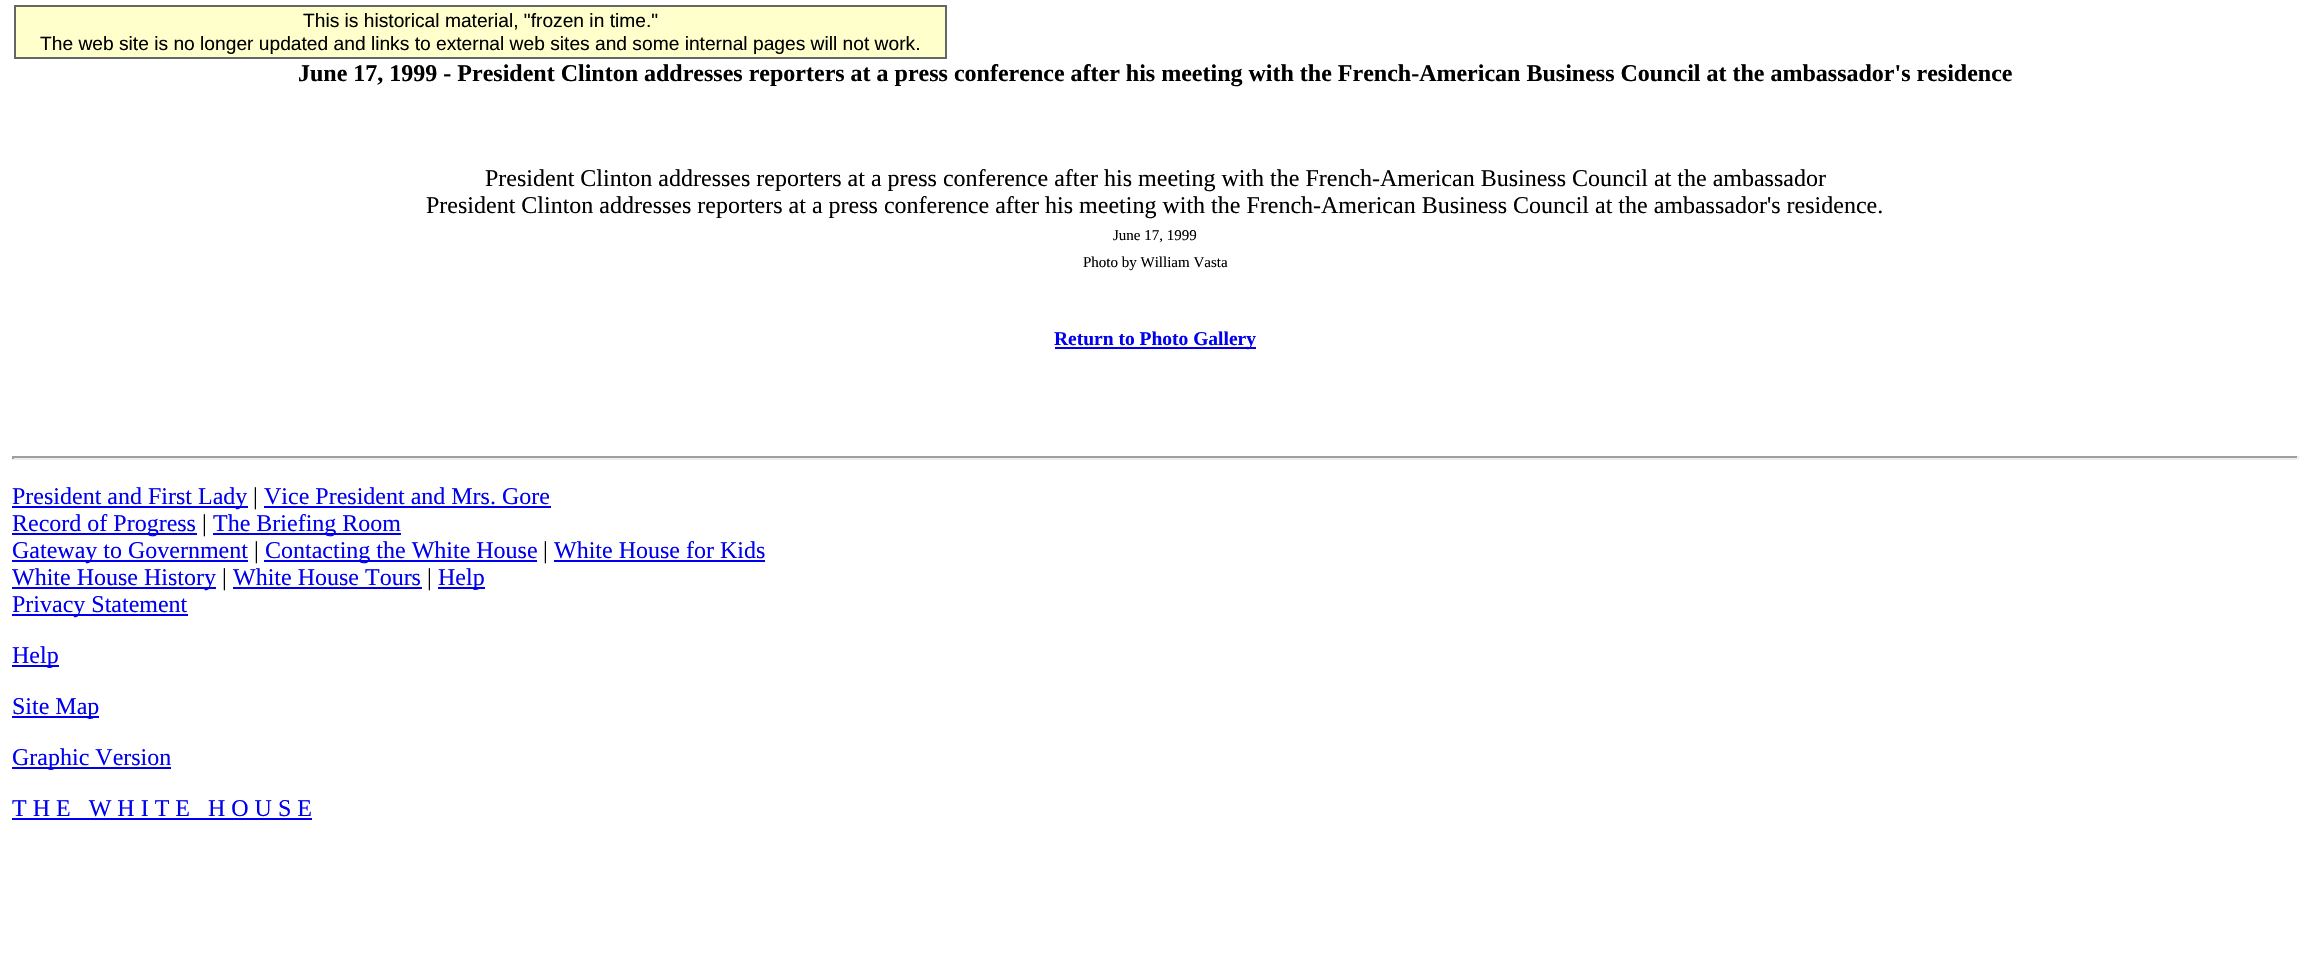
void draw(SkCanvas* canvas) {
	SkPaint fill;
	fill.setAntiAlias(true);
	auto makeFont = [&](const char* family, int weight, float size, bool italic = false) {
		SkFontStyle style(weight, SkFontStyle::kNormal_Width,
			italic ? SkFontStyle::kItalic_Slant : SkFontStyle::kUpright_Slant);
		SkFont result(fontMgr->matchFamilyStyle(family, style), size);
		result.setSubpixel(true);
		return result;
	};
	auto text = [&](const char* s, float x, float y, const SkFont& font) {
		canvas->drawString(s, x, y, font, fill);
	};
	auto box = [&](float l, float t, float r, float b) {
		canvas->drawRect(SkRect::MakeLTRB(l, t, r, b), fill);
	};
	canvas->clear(0xFFFFFFFF);
	fill.setColor(0xFFFFFFCC);
	canvas->drawRect(SkRect::MakeLTRB(15, 6, 946, 58), fill);
	fill.setStyle(SkPaint::kStroke_Style);
	fill.setStrokeWidth(2);
	fill.setColor(0xFF666666);
	canvas->drawRect(SkRect::MakeLTRB(15, 6, 946, 58), fill);
	fill.setStyle(SkPaint::kFill_Style);
	fill.setColor(0xFF0000EE);
	box(1055, 347, 1256, 349);
	fill.setColor(0xFF9F9F9F);
	box(12, 456, 2298, 458);
	fill.setColor(0xFFEEEEEE);
	box(2297, 456, 2299, 459);
	box(12, 458, 2298, 460);
	fill.setColor(0xFF9F9F9F);
	box(12, 456, 14, 459);
	fill.setColor(0xFF0000EE);
	box(12, 506, 248, 508);
	box(264, 506, 551, 508);
	box(12, 533, 197, 535);
	box(213, 533, 401, 535);
	box(12, 560, 248, 562);
	box(264, 560, 537, 562);
	box(554, 560, 765, 562);
	box(12, 587, 216, 589);
	box(233, 587, 422, 589);
	box(438, 587, 485, 589);
	box(12, 614, 188, 616);
	box(12, 665, 59, 667);
	box(12, 716, 99, 718);
	box(12, 767, 171, 769);
	box(12, 818, 312, 820);
	auto font1 = makeFont("Liberation Sans", 400, 19.2f);
	fill.setColor(0xFF000000);
	text("This is historical material, \"frozen in time.\"", 303, 27, font1);
	text("The web site is no longer updated and links to external web sites and some internal pages will not work.", 40, 50, font1);
	auto font2 = makeFont("Liberation Serif", 700, 24);
	text("June 17, 1999 - President Clinton addresses reporters at a press conference after his meeting with the French-American Business Council at the ambassador's residence", 298, 81, font2);
	auto font3 = makeFont("Liberation Serif", 400, 24);
	text("President Clinton addresses reporters at a press conference after his meeting with the French-American Business Council at the ambassador", 485, 186, font3);
	text("President Clinton addresses reporters at a press conference after his meeting with the French-American Business Council at the ambassador's residence.", 426, 213, font3);
	auto font4 = makeFont("Liberation Serif", 400, 15);
	text("June 17, 1999", 1113, 240, font4);
	text("Photo by William Vasta", 1083, 267, font4);
	auto font5 = makeFont("Liberation Serif", 700, 19.5f);
	fill.setColor(0xFF0000EE);
	text("Return to Photo Gallery", 1054, 345, font5);
	text("President and First Lady", 12, 504, font3);
	fill.setColor(0xFF000000);
	text("|", 253, 504, font3);
	fill.setColor(0xFF0000EE);
	text("Vice President and Mrs. Gore", 264, 504, font3);
	text("Record of Progress", 12, 531, font3);
	fill.setColor(0xFF000000);
	text("|", 202, 531, font3);
	fill.setColor(0xFF0000EE);
	text("The Briefing Room", 213, 531, font3);
	text("Gateway to Government", 12, 558, font3);
	fill.setColor(0xFF000000);
	text("|", 254, 558, font3);
	fill.setColor(0xFF0000EE);
	text("Contacting the White House", 265, 558, font3);
	fill.setColor(0xFF000000);
	text("|", 543, 558, font3);
	fill.setColor(0xFF0000EE);
	text("White House for Kids", 554, 558, font3);
	text("White House History", 12, 585, font3);
	fill.setColor(0xFF000000);
	text("|", 222, 585, font3);
	fill.setColor(0xFF0000EE);
	text("White House Tours", 233, 585, font3);
	fill.setColor(0xFF000000);
	text("|", 427, 585, font3);
	fill.setColor(0xFF0000EE);
	text("Help", 438, 585, font3);
	text("Privacy Statement", 12, 612, font3);
	text("Help", 12, 663, font3);
	text("Site Map", 12, 714, font3);
	text("Graphic Version", 12, 765, font3);
	text("T H E   W H I T E   H O U S E", 12, 816, font3);
}
